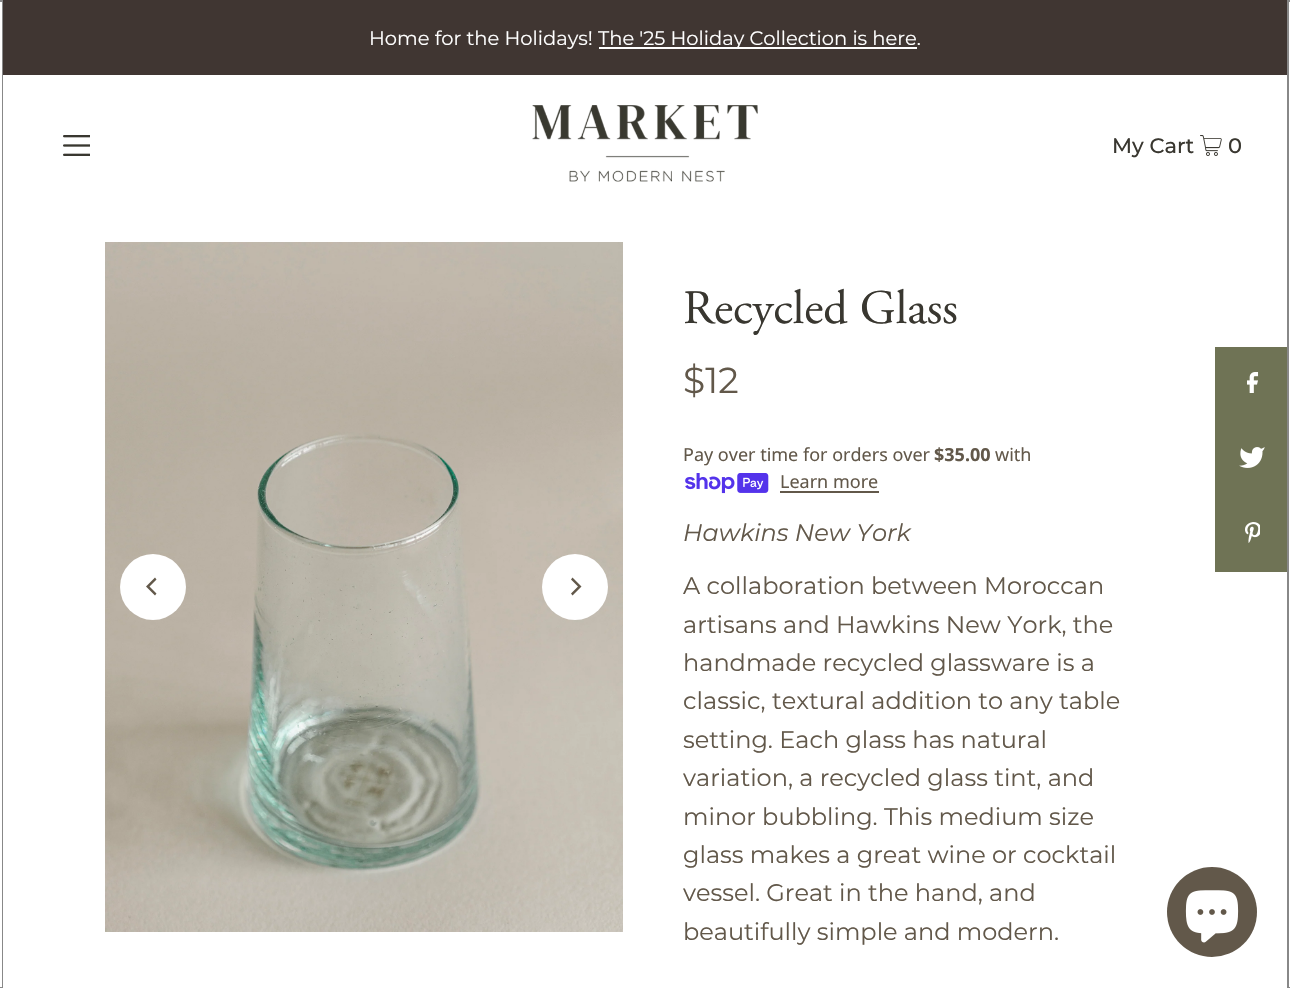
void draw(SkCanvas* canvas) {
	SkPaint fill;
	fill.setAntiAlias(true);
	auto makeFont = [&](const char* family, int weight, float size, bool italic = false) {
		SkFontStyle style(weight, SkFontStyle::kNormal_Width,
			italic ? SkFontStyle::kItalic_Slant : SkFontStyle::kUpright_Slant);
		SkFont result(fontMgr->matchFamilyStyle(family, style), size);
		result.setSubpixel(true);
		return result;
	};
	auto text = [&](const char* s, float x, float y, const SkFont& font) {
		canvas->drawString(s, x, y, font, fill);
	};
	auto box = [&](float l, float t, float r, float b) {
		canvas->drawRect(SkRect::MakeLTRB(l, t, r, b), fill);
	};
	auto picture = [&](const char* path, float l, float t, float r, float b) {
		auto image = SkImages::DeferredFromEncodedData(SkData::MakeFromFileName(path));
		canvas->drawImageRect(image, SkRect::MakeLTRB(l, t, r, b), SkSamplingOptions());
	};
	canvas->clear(0xFFFFFFFF);
	fill.setStyle(SkPaint::kStroke_Style);
	fill.setStrokeWidth(2);
	fill.setColor(0xFF888888);
	canvas->drawRect(SkRect::MakeLTRB(-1, 1, 2, 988), fill);
	fill.setStyle(SkPaint::kFill_Style);
	fill.setColor(0xFFFFFFFF);
	box(1, 2, 2, 987);
	fill.setColor(0xFF403632);
	box(3, 0, 1287, 75);
	fill.setColor(0xFFFFFFFF);
	box(599, 47, 917, 49);
	picture("image0.png", 63, 135, 90, 156);
	picture("image1.png", 532, 105, 758, 182);
	picture("image2.png", 1200, 135, 1222, 156);
	picture("image3.png", 105, 242, 623, 932);
	canvas->drawCircle(153, 587, 33, fill);
	fill.setColor(0xFF62584A);
	canvas->drawPath(SkPathBuilder().moveTo(146, 586.5f).lineTo(155, 595.5f).lineTo(156.5f, 593.5f).lineTo(149.5f, 586.5f).lineTo(156.5f, 579.5f).lineTo(155, 577.5f).close().detach(), fill);
	fill.setColor(0xFFFFFFFF);
	canvas->drawCircle(575, 587, 33, fill);
	fill.setColor(0xFF62584A);
	canvas->drawPath(SkPathBuilder().moveTo(581.5f, 586.5f).lineTo(572.5f, 577.5f).lineTo(571, 579.5f).lineTo(578, 586.5f).lineTo(571, 593.5f).lineTo(572.5f, 595.5f).close().detach(), fill);
	picture("image4.png", 685, 473, 769, 494);
	box(780, 491, 879, 493);
	fill.setColor(0xFF6F7355);
	box(1215, 347, 1287, 572);
	picture("image5.png", 1247, 372, 1259, 393);
	picture("image6.png", 1239, 447, 1265, 468);
	picture("image7.png", 1245, 522, 1260, 543);
	fill.setStyle(SkPaint::kStroke_Style);
	fill.setColor(0xFF888888);
	canvas->drawRect(SkRect::MakeLTRB(1288, 1, 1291, 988), fill);
	fill.setStyle(SkPaint::kFill_Style);
	fill.setColor(0xFF62584A);
	canvas->drawCircle(1212, 912, 45, fill);
	picture("image8.png", 1185, 890, 1239, 943);
	auto font1 = makeFont("Montserrat", 400, 19.5f);
	fill.setColor(0xFFFFFFFF);
	text("Home for the Holidays!", 369, 45, font1);
	text("The '25 Holiday Collection is here.", 598, 45, font1);
	auto font2 = makeFont("Montserrat", 500, 21);
	fill.setColor(0xFF393730);
	text("My Cart", 1112, 153, font2);
	text("0", 1228, 153, font2);
	auto font3 = makeFont("Adobe Garamond", 400, 48);
	text("Recycled Glass", 683, 323, font3);
	auto font4 = makeFont("Montserrat", 400, 36);
	fill.setColor(0xFF62584A);
	text("$12", 683, 393, font4);
	auto font5 = makeFont("Noto Sans", 400, 18);
	text("Pay over time for orders over", 683, 461, font5);
	auto font6 = makeFont("Noto Sans", 700, 18);
	text("$35.00", 934, 461, font6);
	text("with", 995, 461, font5);
	text("Learn more", 780, 488, font5);
	auto font7 = makeFont("Montserrat", 400, 24, true);
	text("Hawkins New York", 683, 541, font7);
	auto font8 = makeFont("Montserrat", 400, 24);
	text("A collaboration between Moroccan", 683, 594, font8);
	text("artisans and Hawkins New York, the", 683, 633, font8);
	text("handmade recycled glassware is a", 683, 671, font8);
	text("classic, textural addition to any table", 683, 709, font8);
	text("setting. Each glass has natural", 683, 748, font8);
	text("variation, a recycled glass tint, and", 683, 786, font8);
	text("minor bubbling. This medium size", 683, 825, font8);
	text("glass makes a great wine or cocktail", 683, 863, font8);
	text("vessel. Great in the hand, and", 683, 901, font8);
	text("beautifully simple and modern.", 683, 940, font8);
}
